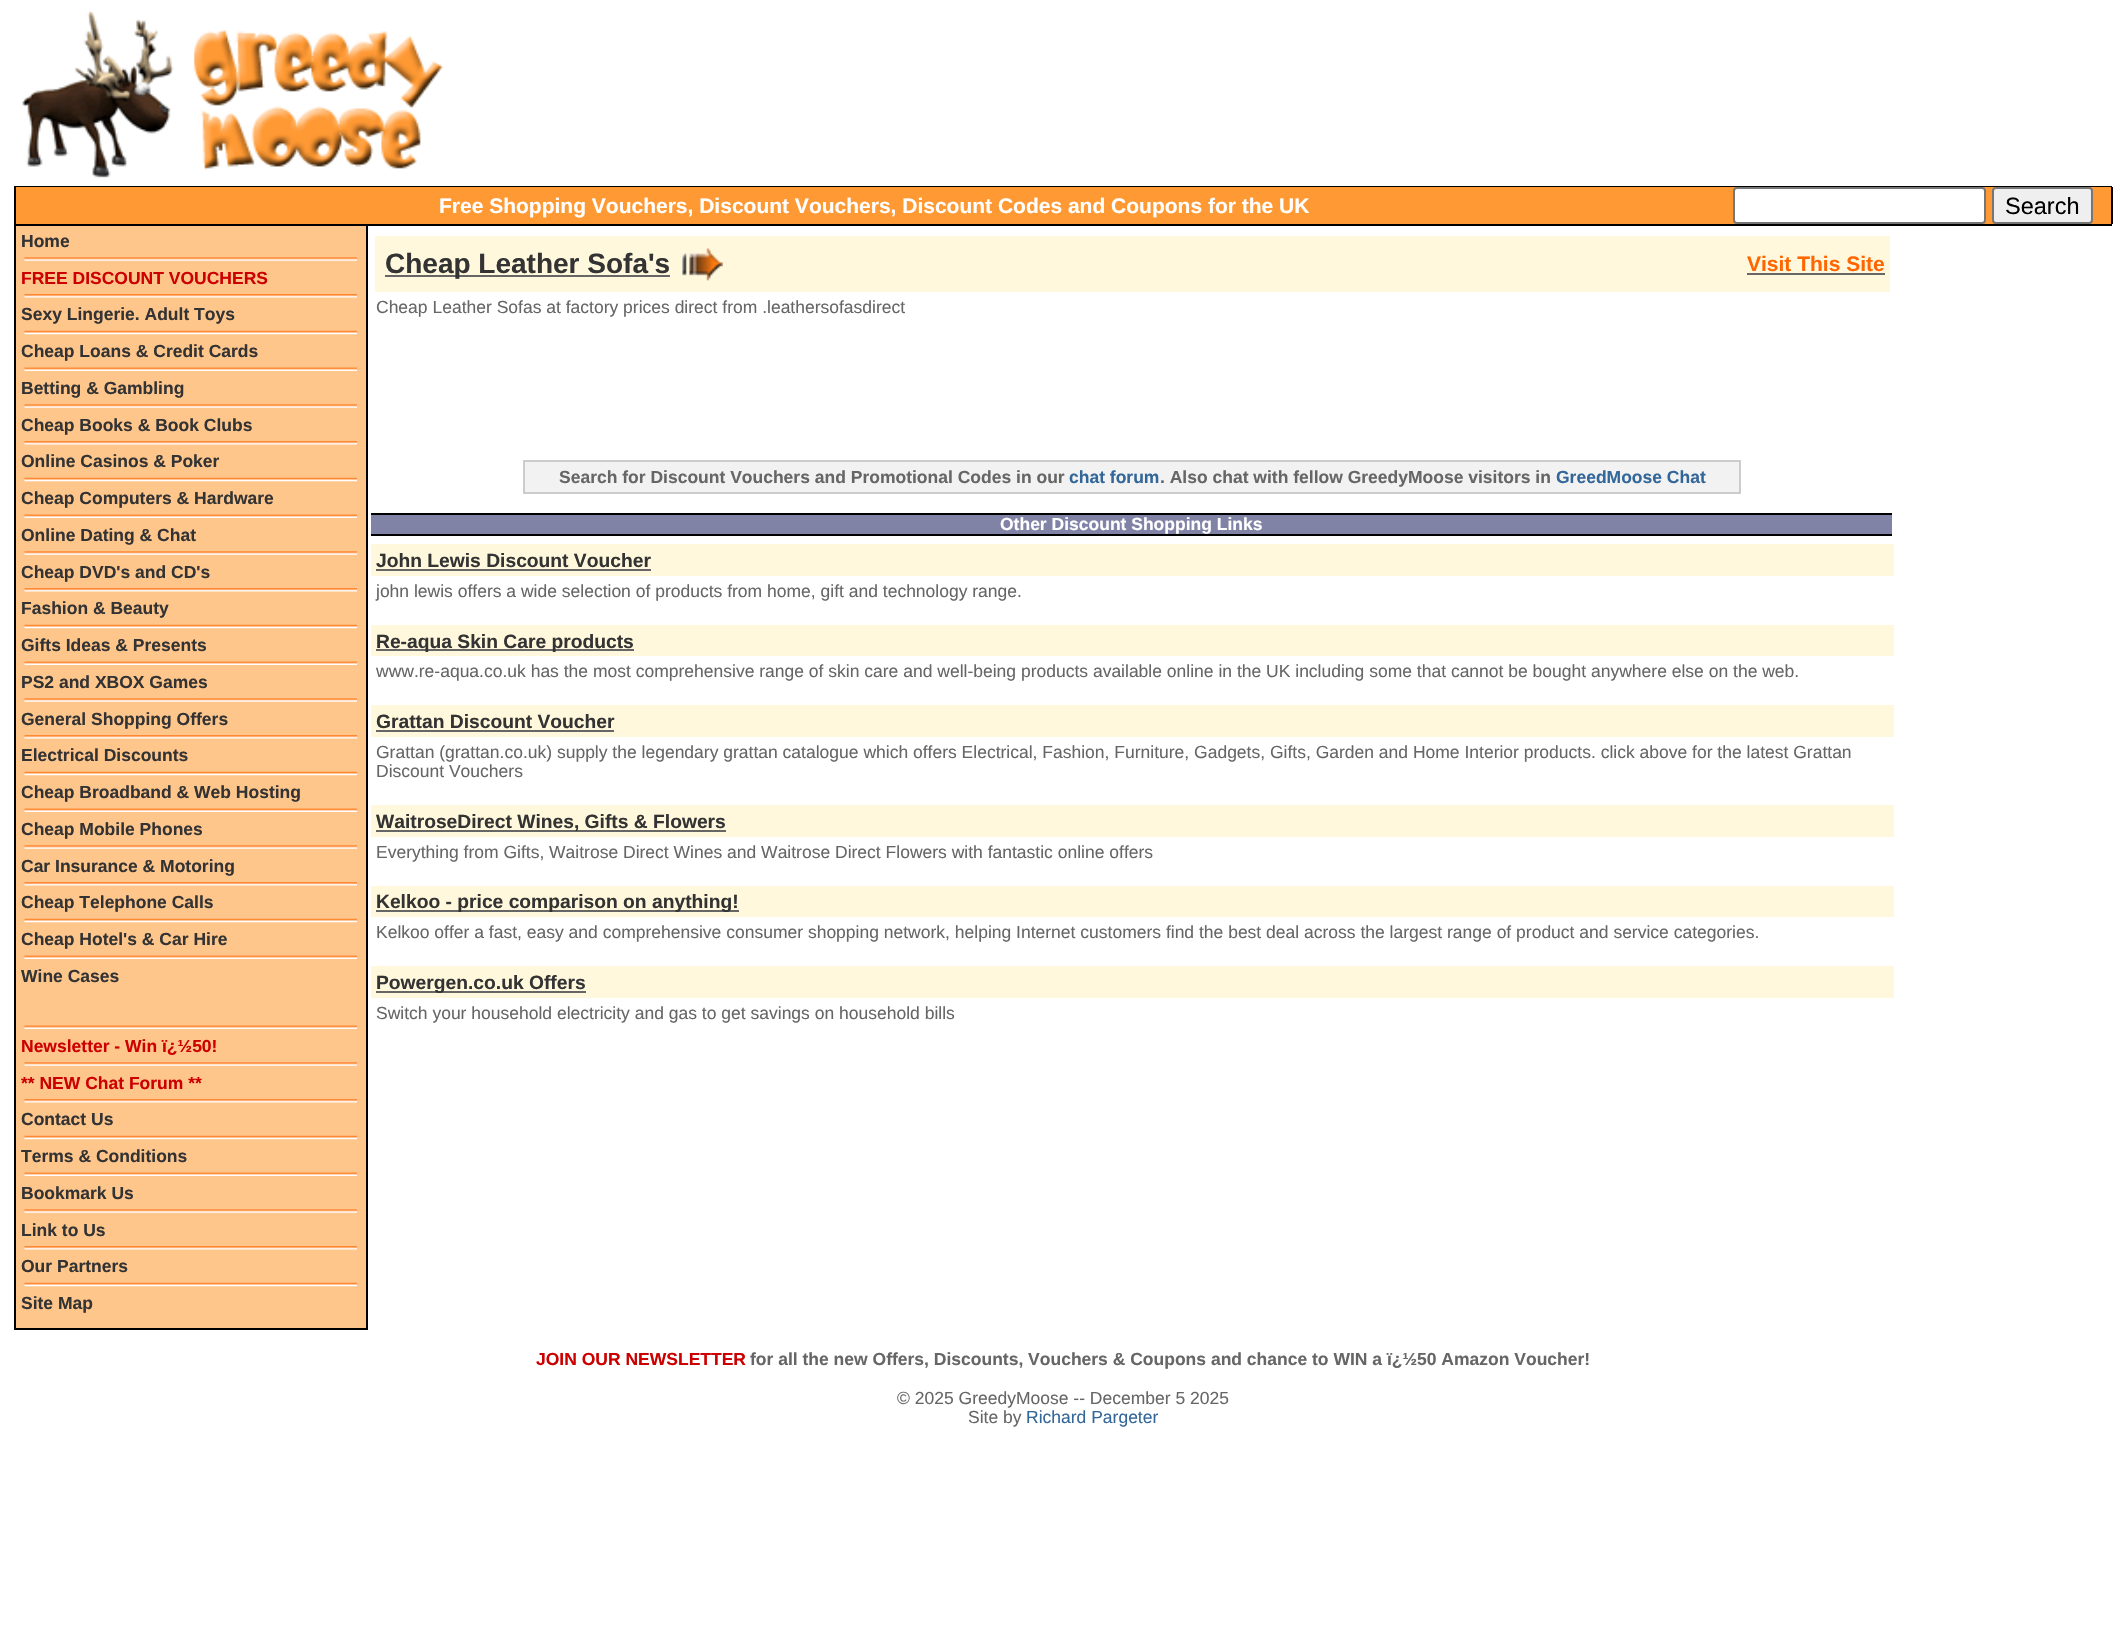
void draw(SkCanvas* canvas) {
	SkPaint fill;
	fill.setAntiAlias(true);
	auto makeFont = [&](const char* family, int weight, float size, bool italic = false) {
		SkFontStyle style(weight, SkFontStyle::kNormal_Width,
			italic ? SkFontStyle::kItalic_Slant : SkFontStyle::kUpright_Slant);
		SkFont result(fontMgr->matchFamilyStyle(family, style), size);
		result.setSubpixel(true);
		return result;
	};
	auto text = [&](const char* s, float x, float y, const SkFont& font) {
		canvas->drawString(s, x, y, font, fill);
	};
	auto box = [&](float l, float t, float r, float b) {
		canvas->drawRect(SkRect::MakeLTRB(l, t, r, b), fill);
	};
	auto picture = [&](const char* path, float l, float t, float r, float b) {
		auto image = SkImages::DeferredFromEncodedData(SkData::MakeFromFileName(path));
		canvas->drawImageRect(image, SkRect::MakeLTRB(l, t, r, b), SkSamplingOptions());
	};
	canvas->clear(0xFFFFFFFF);
	picture("image0.png", 22, 10, 444, 178);
	fill.setColor(0xFF000000);
	box(14, 186, 2112, 187);
	box(14, 187, 16, 224);
	fill.setColor(0xFFFF9933);
	box(16, 187, 2111, 224);
	fill.setColor(0xFFFFFFFF);
	canvas->drawRoundRect(SkRect::MakeLTRB(1734, 188, 1985, 223), 3, 3, fill);
	fill.setStyle(SkPaint::kStroke_Style);
	fill.setStrokeWidth(2);
	fill.setColor(0xFF767676);
	canvas->drawRoundRect(SkRect::MakeLTRB(1734, 188, 1985, 223), 3, 3, fill);
	fill.setStyle(SkPaint::kFill_Style);
	fill.setColor(0xFFEFEFEF);
	canvas->drawRoundRect(SkRect::MakeLTRB(1993, 188, 2092, 223), 3, 3, fill);
	fill.setStyle(SkPaint::kStroke_Style);
	fill.setColor(0xFF767676);
	canvas->drawRoundRect(SkRect::MakeLTRB(1993, 188, 2092, 223), 3, 3, fill);
	fill.setStyle(SkPaint::kFill_Style);
	fill.setColor(0xFF000000);
	box(2111, 187, 2113, 224);
	box(14, 224, 2112, 226);
	box(14, 226, 16, 1330);
	fill.setColor(0xFFFFC68C);
	box(16, 226, 366, 1328);
	picture("image1.png", 24, 257, 357, 261);
	picture("image2.png", 24, 294, 357, 298);
	picture("image3.png", 24, 330, 357, 335);
	picture("image4.png", 24, 367, 357, 371);
	picture("image1.png", 24, 404, 357, 408);
	picture("image2.png", 24, 441, 357, 445);
	picture("image3.png", 24, 477, 357, 482);
	picture("image4.png", 24, 514, 357, 518);
	picture("image1.png", 24, 551, 357, 555);
	picture("image2.png", 24, 588, 357, 592);
	picture("image3.png", 24, 624, 357, 629);
	picture("image4.png", 24, 661, 357, 665);
	picture("image1.png", 24, 698, 357, 702);
	picture("image2.png", 24, 735, 357, 739);
	picture("image3.png", 24, 771, 357, 776);
	picture("image4.png", 24, 808, 357, 812);
	picture("image1.png", 24, 845, 357, 849);
	picture("image2.png", 24, 882, 357, 886);
	picture("image3.png", 24, 918, 357, 923);
	picture("image4.png", 24, 955, 357, 959);
	picture("image4.png", 24, 1025, 357, 1029);
	picture("image1.png", 24, 1062, 357, 1066);
	picture("image2.png", 24, 1099, 357, 1103);
	picture("image3.png", 24, 1135, 357, 1140);
	picture("image4.png", 24, 1172, 357, 1176);
	picture("image1.png", 24, 1209, 357, 1213);
	picture("image2.png", 24, 1246, 357, 1250);
	picture("image3.png", 24, 1282, 357, 1287);
	fill.setColor(0xFF000000);
	box(366, 226, 368, 1330);
	fill.setColor(0xFFFFF8DC);
	box(375, 236, 1890, 292);
	fill.setColor(0xFF666666);
	box(385, 275, 670, 277);
	picture("image5.png", 682, 248, 723, 281);
	box(1747, 273, 1885, 275);
	fill.setColor(0xFFF2F2F2);
	canvas->drawRect(SkRect::MakeLTRB(524, 461, 1740, 493), fill);
	fill.setStyle(SkPaint::kStroke_Style);
	fill.setColor(0xFFCCCCCC);
	canvas->drawRect(SkRect::MakeLTRB(524, 461, 1740, 493), fill);
	fill.setStyle(SkPaint::kFill_Style);
	fill.setColor(0xFF8082A6);
	box(371, 515, 1892, 534);
	fill.setColor(0xFF000000);
	box(371, 513, 1892, 515);
	box(371, 534, 1892, 536);
	fill.setColor(0xFFFFF8DC);
	box(371, 544, 1894, 576);
	fill.setColor(0xFF666666);
	box(376, 569, 651, 571);
	fill.setColor(0xFFFFF8DC);
	box(371, 625, 1894, 656);
	fill.setColor(0xFF666666);
	box(376, 649, 634, 651);
	fill.setColor(0xFFFFF8DC);
	box(371, 705, 1894, 737);
	fill.setColor(0xFF666666);
	box(376, 730, 614, 732);
	fill.setColor(0xFFFFF8DC);
	box(371, 805, 1894, 837);
	fill.setColor(0xFF666666);
	box(376, 830, 726, 832);
	fill.setColor(0xFFFFF8DC);
	box(371, 886, 1894, 917);
	fill.setColor(0xFF666666);
	box(376, 910, 739, 912);
	fill.setColor(0xFFFFF8DC);
	box(371, 966, 1894, 998);
	fill.setColor(0xFF666666);
	box(376, 991, 586, 993);
	fill.setColor(0xFF000000);
	box(16, 1328, 366, 1330);
	auto font1 = makeFont("Liberation Sans", 700, 21);
	fill.setColor(0xFFFFFFFF);
	text("Free Shopping Vouchers, Discount Vouchers, Discount Codes and Coupons for the UK", 439, 213, font1);
	auto font2 = makeFont("Liberation Sans", 400, 23.5f);
	fill.setColor(0xFF000000);
	text("Search", 2005, 214, font2);
	auto font3 = makeFont("Liberation Sans", 700, 17.5f);
	fill.setColor(0xFF333333);
	text("Home", 21, 247, font3);
	fill.setColor(0xFFCC0000);
	text("FREE DISCOUNT VOUCHERS", 21, 284, font3);
	fill.setColor(0xFF333333);
	text("Sexy Lingerie. Adult Toys", 21, 320, font3);
	text("Cheap Loans & Credit Cards", 21, 357, font3);
	text("Betting & Gambling", 21, 394, font3);
	text("Cheap Books & Book Clubs", 21, 431, font3);
	text("Online Casinos & Poker", 21, 467, font3);
	text("Cheap Computers & Hardware", 21, 504, font3);
	text("Online Dating & Chat", 21, 541, font3);
	text("Cheap DVD's and CD's", 21, 578, font3);
	text("Fashion & Beauty", 21, 614, font3);
	text("Gifts Ideas & Presents", 21, 651, font3);
	text("PS2 and XBOX Games", 21, 688, font3);
	text("General Shopping Offers", 21, 725, font3);
	text("Electrical Discounts", 21, 761, font3);
	text("Cheap Broadband & Web Hosting", 21, 798, font3);
	text("Cheap Mobile Phones", 21, 835, font3);
	text("Car Insurance & Motoring", 21, 872, font3);
	text("Cheap Telephone Calls", 21, 908, font3);
	text("Cheap Hotel's & Car Hire", 21, 945, font3);
	text("Wine Cases", 21, 982, font3);
	fill.setColor(0xFFCC0000);
	text("Newsletter - Win ï¿½50!", 21, 1052, font3);
	text("** NEW Chat Forum **", 21, 1089, font3);
	fill.setColor(0xFF333333);
	text("Contact Us", 21, 1125, font3);
	text("Terms & Conditions", 21, 1162, font3);
	text("Bookmark Us", 21, 1199, font3);
	text("Link to Us", 21, 1236, font3);
	text("Our Partners", 21, 1272, font3);
	text("Site Map", 21, 1309, font3);
	auto font4 = makeFont("Liberation Sans", 700, 28);
	text("Cheap Leather Sofa's", 385, 273, font4);
	fill.setColor(0xFFFF6600);
	text("Visit This Site", 1747, 271, font1);
	auto font5 = makeFont("Liberation Sans", 400, 17.5f);
	fill.setColor(0xFF666666);
	text("Cheap Leather Sofas at factory prices direct from .leathersofasdirect", 376, 313, font5);
	text("Search for Discount Vouchers and Promotional Codes in our", 559, 483, font3);
	fill.setColor(0xFF336699);
	text("chat forum", 1069, 483, font3);
	fill.setColor(0xFF666666);
	text(". Also chat with fellow GreedyMoose visitors in", 1160, 483, font3);
	fill.setColor(0xFF336699);
	text("GreedMoose Chat", 1556, 483, font3);
	fill.setColor(0xFFFFFFFF);
	text("Other Discount Shopping Links", 1000, 530, font3);
	auto font6 = makeFont("Liberation Sans", 700, 19.25f);
	fill.setColor(0xFF333333);
	text("John Lewis Discount Voucher", 376, 567, font6);
	fill.setColor(0xFF666666);
	text("john lewis offers a wide selection of products from home, gift and technology range.", 376, 597, font5);
	fill.setColor(0xFF333333);
	text("Re-aqua Skin Care products", 376, 648, font6);
	fill.setColor(0xFF666666);
	text("www.re-aqua.co.uk has the most comprehensive range of skin care and well-being products available online in the UK including some that cannot be bought anywhere else on the web.", 376, 677, font5);
	fill.setColor(0xFF333333);
	text("Grattan Discount Voucher", 376, 728, font6);
	fill.setColor(0xFF666666);
	text("Grattan (grattan.co.uk) supply the legendary grattan catalogue which offers Electrical, Fashion, Furniture, Gadgets, Gifts, Garden and Home Interior products. click above for the latest Grattan", 376, 758, font5);
	text("Discount Vouchers", 376, 777, font5);
	fill.setColor(0xFF333333);
	text("WaitroseDirect Wines, Gifts & Flowers", 376, 828, font6);
	fill.setColor(0xFF666666);
	text("Everything from Gifts, Waitrose Direct Wines and Waitrose Direct Flowers with fantastic online offers", 376, 858, font5);
	fill.setColor(0xFF333333);
	text("Kelkoo - price comparison on anything!", 376, 908, font6);
	fill.setColor(0xFF666666);
	text("Kelkoo offer a fast, easy and comprehensive consumer shopping network, helping Internet customers find the best deal across the largest range of product and service categories.", 376, 938, font5);
	fill.setColor(0xFF333333);
	text("Powergen.co.uk Offers", 376, 989, font6);
	fill.setColor(0xFF666666);
	text("Switch your household electricity and gas to get savings on household bills", 376, 1019, font5);
	fill.setColor(0xFFCC0000);
	text("JOIN OUR NEWSLETTER", 536, 1365, font3);
	fill.setColor(0xFF666666);
	text("for all the new Offers, Discounts, Vouchers & Coupons and chance to WIN a ï¿½50 Amazon Voucher!", 750, 1365, font3);
	text("© 2025 GreedyMoose -- December 5 2025", 897, 1404, font5);
	text("Site by", 968, 1423, font5);
	fill.setColor(0xFF336699);
	text("Richard Pargeter", 1026, 1423, font5);
}
